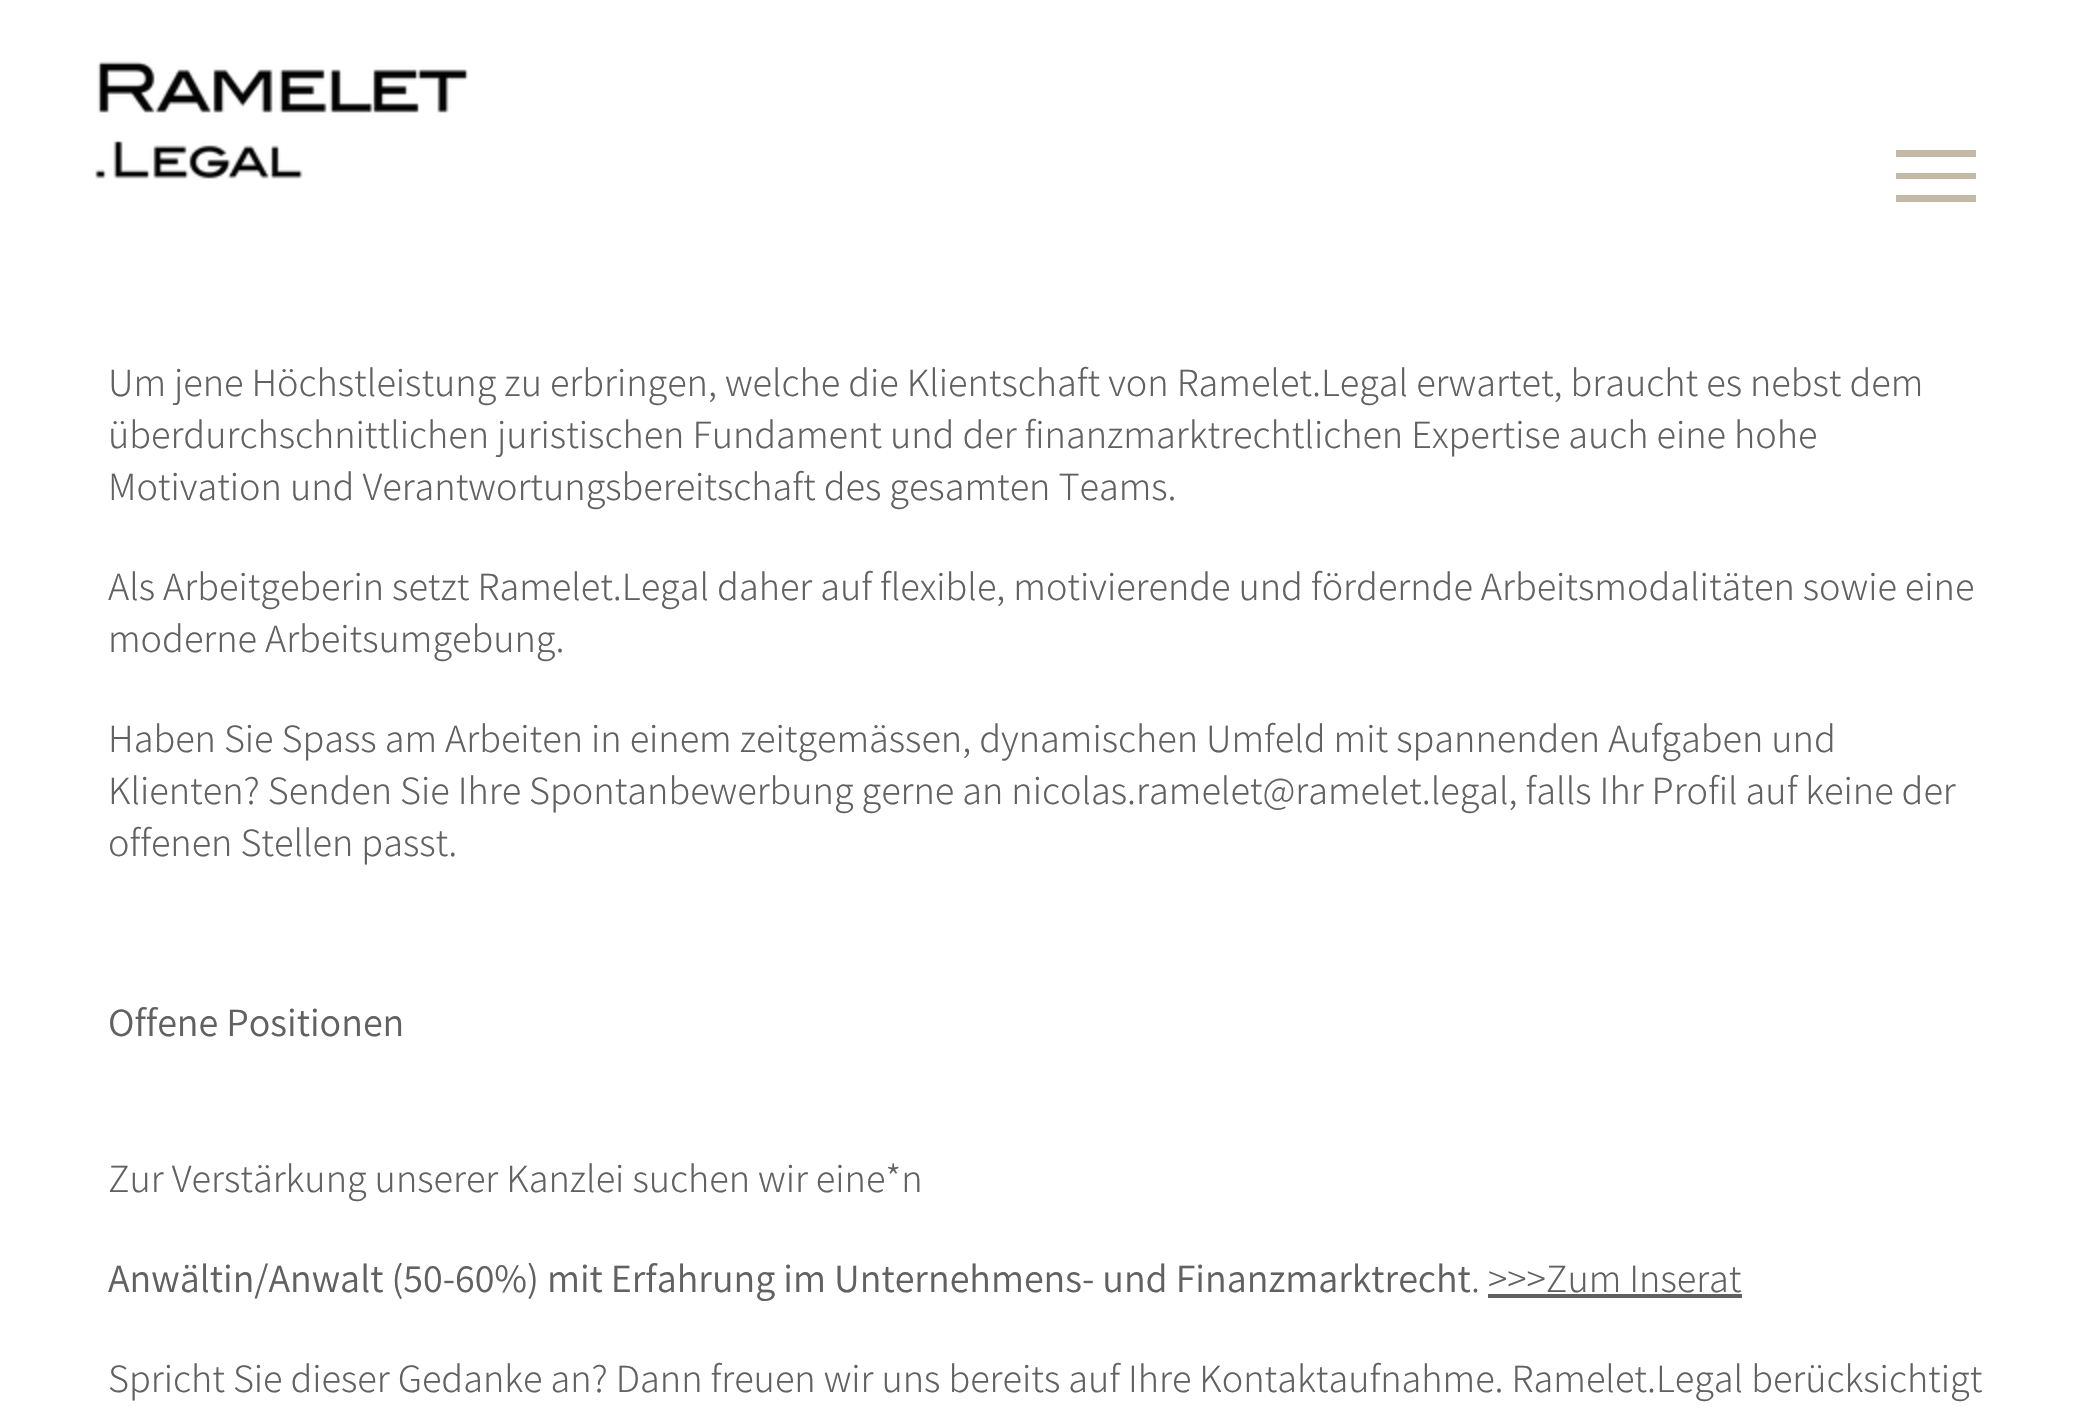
void draw(SkCanvas* canvas) {
	SkPaint fill;
	fill.setAntiAlias(true);
	auto makeFont = [&](const char* family, int weight, float size, bool italic = false) {
		SkFontStyle style(weight, SkFontStyle::kNormal_Width,
			italic ? SkFontStyle::kItalic_Slant : SkFontStyle::kUpright_Slant);
		SkFont result(fontMgr->matchFamilyStyle(family, style), size);
		result.setSubpixel(true);
		return result;
	};
	auto text = [&](const char* s, float x, float y, const SkFont& font) {
		canvas->drawString(s, x, y, font, fill);
	};
	auto box = [&](float l, float t, float r, float b) {
		canvas->drawRect(SkRect::MakeLTRB(l, t, r, b), fill);
	};
	auto picture = [&](const char* path, float l, float t, float r, float b) {
		auto image = SkImages::DeferredFromEncodedData(SkData::MakeFromFileName(path));
		canvas->drawImageRect(image, SkRect::MakeLTRB(l, t, r, b), SkSamplingOptions());
	};
	canvas->clear(0xFFFFFFFF);
	picture("image0.png", 95, 61, 468, 179);
	fill.setColor(0xFFC4B8A6);
	box(1896, 195, 1976, 202);
	box(1896, 150, 1976, 157);
	box(1896, 173, 1976, 179);
	fill.setColor(0xFF616161);
	box(1488, 1294, 1742, 1298);
	auto font1 = makeFont("Assistant", 300, 40);
	text("Um jene Höchstleistung zu erbringen, welche die Klientschaft von Ramelet.Legal erwartet, braucht es nebst dem", 108, 396, font1);
	text("überdurchschnittlichen juristischen Fundament und der finanzmarktrechtlichen Expertise auch eine hohe", 108, 448, font1);
	text("Motivation und Verantwortungsbereitschaft des gesamten Teams.", 108, 500, font1);
	text("Als Arbeitgeberin setzt Ramelet.Legal daher auf flexible, motivierende und fördernde Arbeitsmodalitäten sowie eine", 108, 600, font1);
	text("moderne Arbeitsumgebung.", 108, 652, font1);
	text("Haben Sie Spass am Arbeiten in einem zeitgemässen, dynamischen Umfeld mit spannenden Aufgaben und", 108, 752, font1);
	text("Klienten? Senden Sie Ihre Spontanbewerbung gerne an nicolas.ramelet@ramelet.legal, falls Ihr Profil auf keine der", 108, 804, font1);
	text("offenen Stellen passt.", 108, 856, font1);
	auto font2 = makeFont("Assistant", 400, 40);
	text("Offene Positionen", 108, 1036, font2);
	text("Zur Verstärkung unserer Kanzlei suchen wir eine*n", 108, 1192, font1);
	text("Anwältin/Anwalt (50-60%) mit Erfahrung im Unternehmens- und Finanzmarktrecht", 108, 1292, font2);
	text(". >>>Zum Inserat", 1471, 1292, font1);
	text("Spricht Sie dieser Gedanke an? Dann freuen wir uns bereits auf Ihre Kontaktaufnahme. Ramelet.Legal berücksichtigt", 108, 1392, font1);
}
